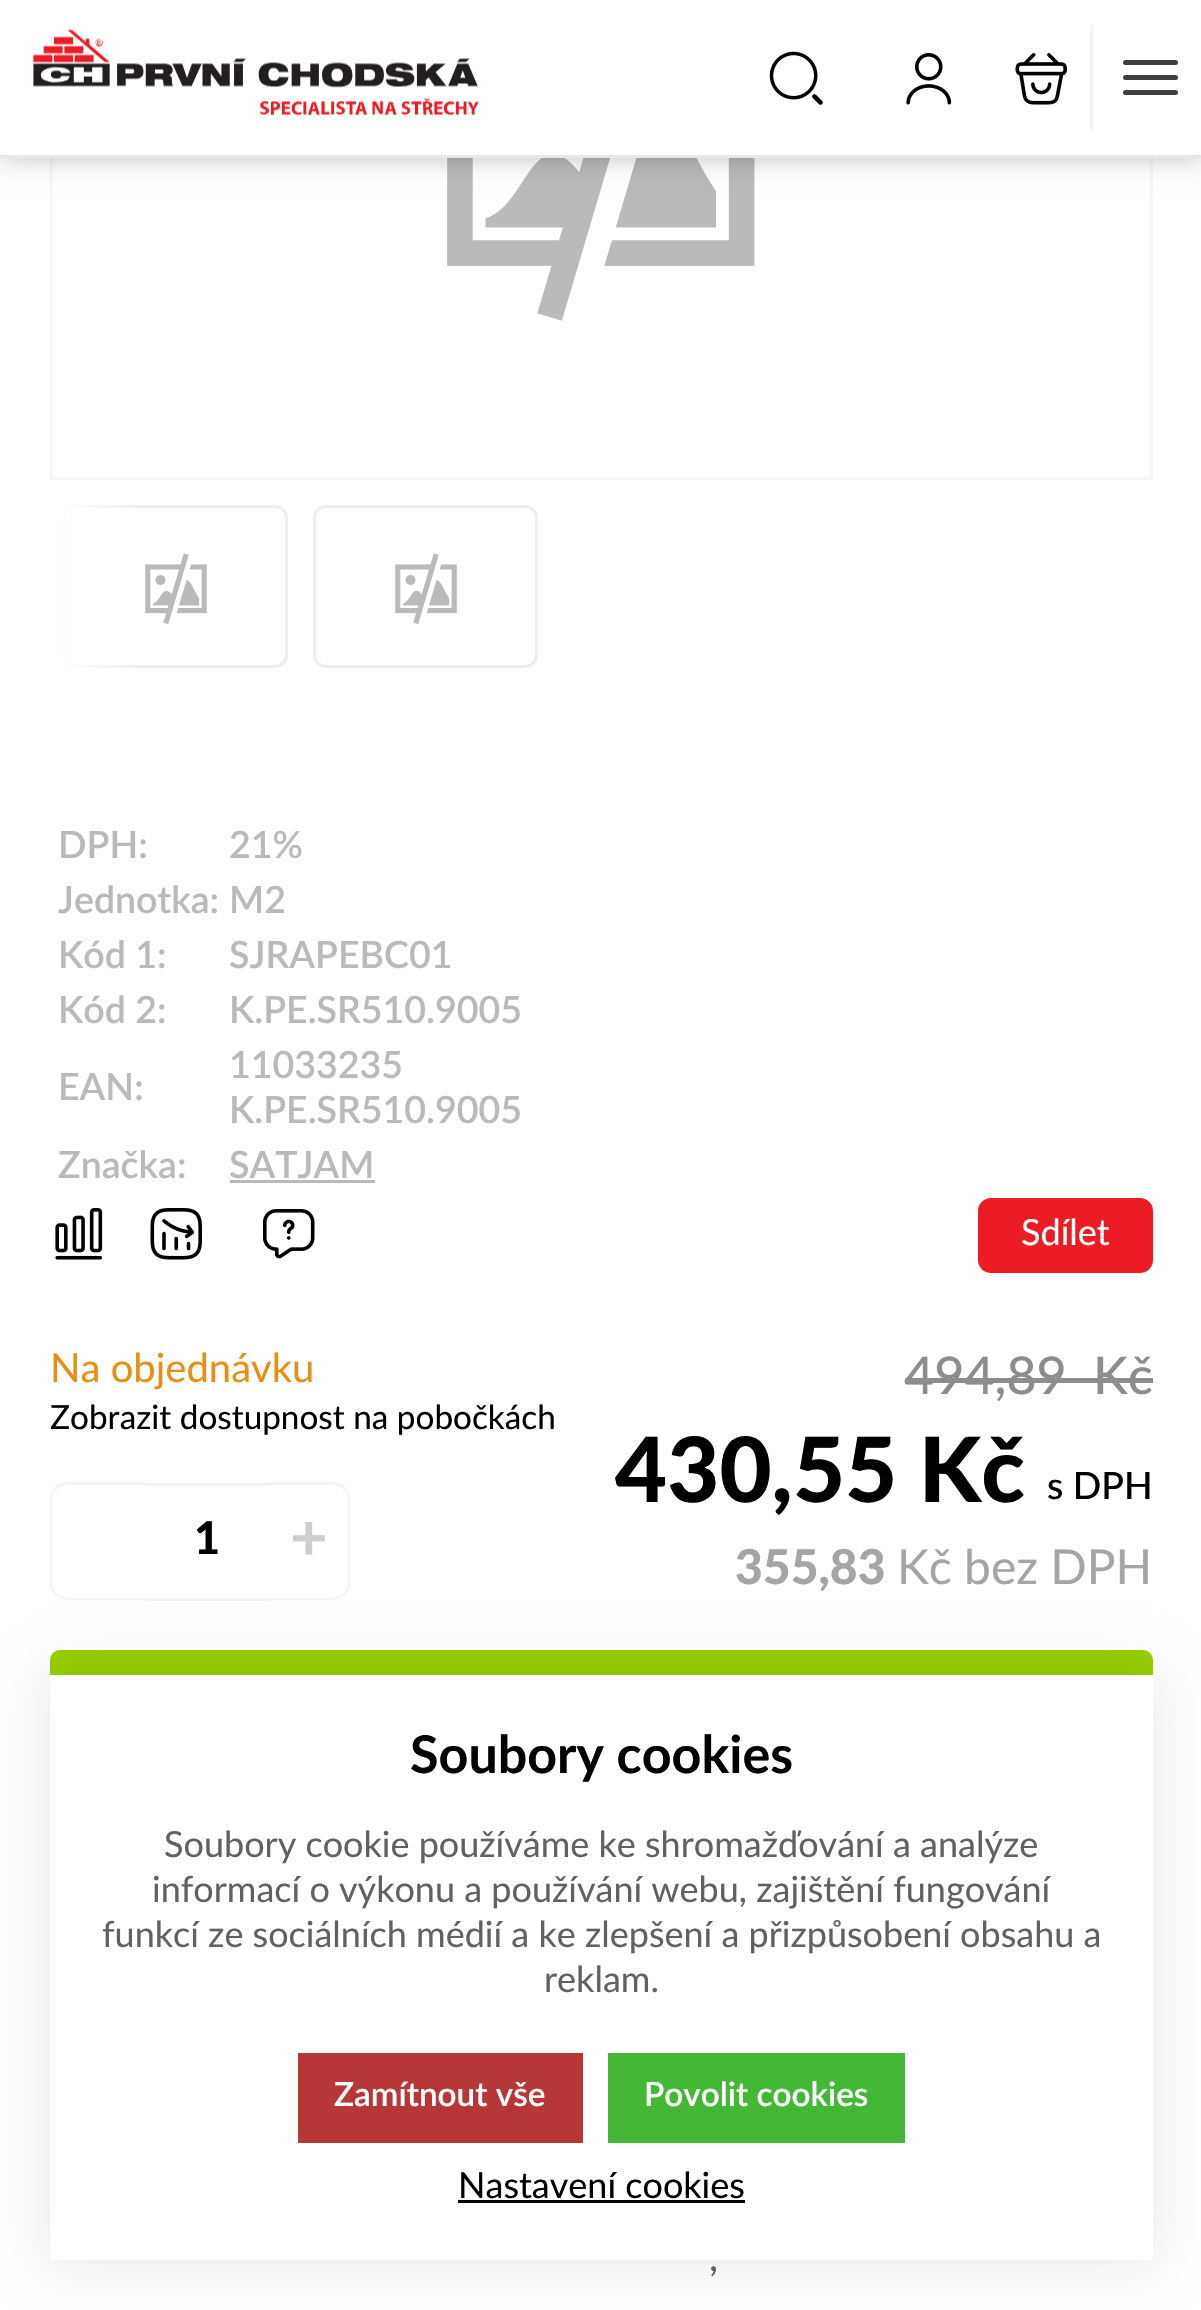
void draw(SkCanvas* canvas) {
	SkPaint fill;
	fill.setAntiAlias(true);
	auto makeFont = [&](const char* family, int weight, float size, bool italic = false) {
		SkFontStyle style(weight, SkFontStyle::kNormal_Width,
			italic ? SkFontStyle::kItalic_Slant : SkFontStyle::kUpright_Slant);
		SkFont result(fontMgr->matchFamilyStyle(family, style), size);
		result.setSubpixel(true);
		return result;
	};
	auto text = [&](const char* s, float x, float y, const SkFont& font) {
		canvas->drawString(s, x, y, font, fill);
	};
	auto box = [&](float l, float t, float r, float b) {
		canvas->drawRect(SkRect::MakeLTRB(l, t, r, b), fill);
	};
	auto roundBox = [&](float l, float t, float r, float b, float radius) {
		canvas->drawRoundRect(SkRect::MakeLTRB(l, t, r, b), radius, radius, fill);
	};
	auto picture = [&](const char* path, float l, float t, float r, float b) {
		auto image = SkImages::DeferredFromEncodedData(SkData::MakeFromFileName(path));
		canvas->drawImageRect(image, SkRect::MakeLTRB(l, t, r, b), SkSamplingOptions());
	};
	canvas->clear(0xFFFFFFFF);
	fill.setStyle(SkPaint::kStroke_Style);
	fill.setStrokeWidth(3);
	fill.setColor(0xFFF7F7F7);
	canvas->drawRect(SkRect::MakeLTRB(51.5f, -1.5f, 1151.5f, 478.5f), fill);
	picture("image4.png", 447, 158, 755, 321);
	fill.setStyle(SkPaint::kFill_Style);
	fill.setColor(0x40000000);
	fill.setMaskFilter(SkMaskFilter::MakeBlur(kNormal_SkBlurStyle, 12.5f));
	canvas->drawRect(SkRect::MakeLTRB(0, 0, 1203, 158), fill);
	fill.setMaskFilter(nullptr);
	fill.setColor(0xFFFFFFFF);
	box(0, 0, 1201, 155);
	fill.setColor(0xFFE8E8E8);
	box(0, 155, 1201, 158);
	picture("image0.png", 33, 29, 479, 116);
	picture("image1.png", 769, 51, 823, 105);
	picture("image2.png", 906, 53, 952, 105);
	picture("image3.png", 1015, 53, 1068, 105);
	fill.setColor(0xFFF2F4F8);
	box(1090, 25, 1093, 130);
	fill.setColor(0xFF3F3F3F);
	roundBox(1123, 60, 1178, 65, 2.5f);
	roundBox(1123, 75, 1178, 80, 2.5f);
	roundBox(1123, 90, 1178, 95, 2.5f);
	fill.setStyle(SkPaint::kStroke_Style);
	fill.setColor(0xFFEFEFEF);
	canvas->drawRoundRect(SkRect::MakeLTRB(64.5f, 506.5f, 286.5f, 666.5f), 11.5f, 11.5f, fill);
	picture("image5.png", 145, 553, 207, 624);
	canvas->drawRoundRect(SkRect::MakeLTRB(314.5f, 506.5f, 536.5f, 666.5f), 11.5f, 11.5f, fill);
	picture("image5.png", 395, 553, 457, 624);
	fill.setStyle(SkPaint::kFill_Style);
	{
		const SkColor colors[] = {0xFFFFFFFF, 0x00FFFFFF};
		const float stops[] = {0, 1};
		const SkPoint ends[] = {{50, 586}, {150, 586}};
		fill.setShader(SkGradientShader::MakeLinear(ends, colors, stops, 2, SkTileMode::kClamp));
		fill.setAlpha(255);
	}
	box(63, 505, 134, 668);
	fill.setShader(nullptr);
	fill.setColor(0xFFBABABA);
	box(230, 1180, 375, 1183);
	picture("image6.png", 55, 1208, 103, 1260);
	picture("image7.png", 150, 1208, 202, 1260);
	picture("image8.png", 263, 1209, 315, 1259);
	fill.setColor(0xFFED1C24);
	roundBox(978, 1198, 1153, 1273, 13);
	fill.setColor(0xFFF4F4F4);
	canvas->drawPath(SkPathBuilder(SkPathFillType::kEvenOdd).moveTo(68, 1482).lineTo(145, 1482).lineTo(145, 1600).lineTo(68, 1600).cubicTo(58, 1600, 50, 1592, 50, 1582).lineTo(50, 1500).cubicTo(50, 1490, 58, 1482, 68, 1482).close().moveTo(68, 1485).lineTo(145, 1485).lineTo(145, 1598).lineTo(68, 1598).cubicTo(59, 1598, 52, 1591, 52, 1582).lineTo(52, 1500).cubicTo(52, 1492, 59, 1485, 68, 1485).close().detach(), fill);
	box(145, 1483, 270, 1486);
	box(145, 1598, 270, 1601);
	canvas->drawPath(SkPathBuilder(SkPathFillType::kEvenOdd).moveTo(270, 1482).lineTo(332, 1482).cubicTo(342, 1482, 350, 1490, 350, 1500).lineTo(350, 1582).cubicTo(350, 1592, 342, 1600, 332, 1600).lineTo(270, 1600).close().moveTo(270, 1485).lineTo(332, 1485).cubicTo(341, 1485, 348, 1492, 348, 1500).lineTo(348, 1582).cubicTo(348, 1591, 341, 1598, 332, 1598).lineTo(270, 1598).close().detach(), fill);
	fill.setColor(0xFF8D8D8D);
	box(905, 1378, 1080, 1383);
	box(1080, 1378, 1153, 1383);
	fill.setColor(0xFF98CE00);
	roundBox(50, 1650, 1153, 1775, 10);
	fill.setColor(0x1A000000);
	fill.setMaskFilter(SkMaskFilter::MakeBlur(kNormal_SkBlurStyle, 25));
	canvas->drawRect(SkRect::MakeLTRB(50, 1675, 1153, 2260), fill);
	fill.setMaskFilter(nullptr);
	fill.setColor(0xFFFFFFFF);
	box(50, 1675, 1153, 2260);
	fill.setColor(0xFFB73636);
	box(298, 2053, 583, 2143);
	fill.setColor(0xFF44B736);
	box(608, 2053, 905, 2143);
	fill.setColor(0xFF000000);
	box(458, 2200, 745, 2203);
	auto font1 = makeFont("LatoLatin", 600, 37.5f);
	fill.setColor(0xFFBABABA);
	text("DPH:", 58, 858, font1);
	text("21%", 229, 858, font1);
	text("Jednotka:", 58, 913, font1);
	text("M2", 229, 913, font1);
	text("Kód 1:", 58, 968, font1);
	text("SJRAPEBC01", 229, 968, font1);
	text("Kód 2:", 58, 1023, font1);
	text("K.PE.SR510.9005", 229, 1023, font1);
	text("EAN:", 58, 1100, font1);
	text("11033235", 229, 1078, font1);
	text("K.PE.SR510.9005", 229, 1123, font1);
	text("Značka:", 58, 1178, font1);
	text("SATJAM", 229, 1178, font1);
	auto font2 = makeFont("LatoLatin", 400, 36);
	fill.setColor(0xFFFFFFFF);
	text("Sdílet", 1021, 1245, font2);
	auto font3 = makeFont("LatoLatin", 400, 40);
	fill.setColor(0xFFE88E12);
	text("Na objednávku", 50, 1382, font3);
	auto font4 = makeFont("LatoLatin", 400, 33.3f);
	fill.setColor(0xFF000000);
	text("Zobrazit dostupnost na pobočkách", 50, 1429, font4);
	auto font5 = makeFont("LatoLatin", 900, 45);
	text("1", 194, 1554, font5);
	auto font6 = makeFont("LatoLatin", 700, 65);
	fill.setColor(0xFFCECECE);
	text("+", 290, 1560, font6);
	auto font7 = makeFont("LatoLatin", 500, 52);
	fill.setColor(0xFF8D8D8D);
	text("494,89", 904, 1394, font7);
	text("Kč", 1093, 1394, font7);
	auto font8 = makeFont("LatoLatin", 900, 90);
	fill.setColor(0xFF000000);
	text("430,55 Kč", 615, 1502, font8);
	auto font9 = makeFont("LatoLatin", 500, 37.5f);
	text("s DPH", 1047, 1499, font9);
	auto font10 = makeFont("LatoLatin", 900, 48);
	fill.setColor(0xFFA5A5A5);
	text("355,83", 735, 1584, font10);
	auto font11 = makeFont("LatoLatin", 400, 48);
	text("Kč bez DPH", 897, 1584, font11);
	fill.setColor(0xFF5F6163);
	text(",", 709, 2271, font3);
	auto font12 = makeFont("LatoLatin", 700, 52);
	fill.setColor(0xFF000000);
	text("Soubory cookies", 410, 1773, font12);
	fill.setColor(0xFF5F6163);
	text("Soubory cookie používáme ke shromažďování a analýze", 164, 1857, font2);
	text("informací o výkonu a používání webu, zajištění fungování", 152, 1902, font2);
	text("funkcí ze sociálních médií a ke zlepšení a přizpůsobení obsahu a", 102, 1947, font2);
	text("reklam.", 544, 1992, font2);
	auto font13 = makeFont("LatoLatin", 600, 33.3f);
	fill.setColor(0xFFFFFFFF);
	text("Zamítnout vše", 334, 2106, font13);
	text("Povolit cookies", 644, 2106, font13);
	fill.setColor(0xFF000000);
	text("Nastavení cookies", 458, 2198, font2);
}
